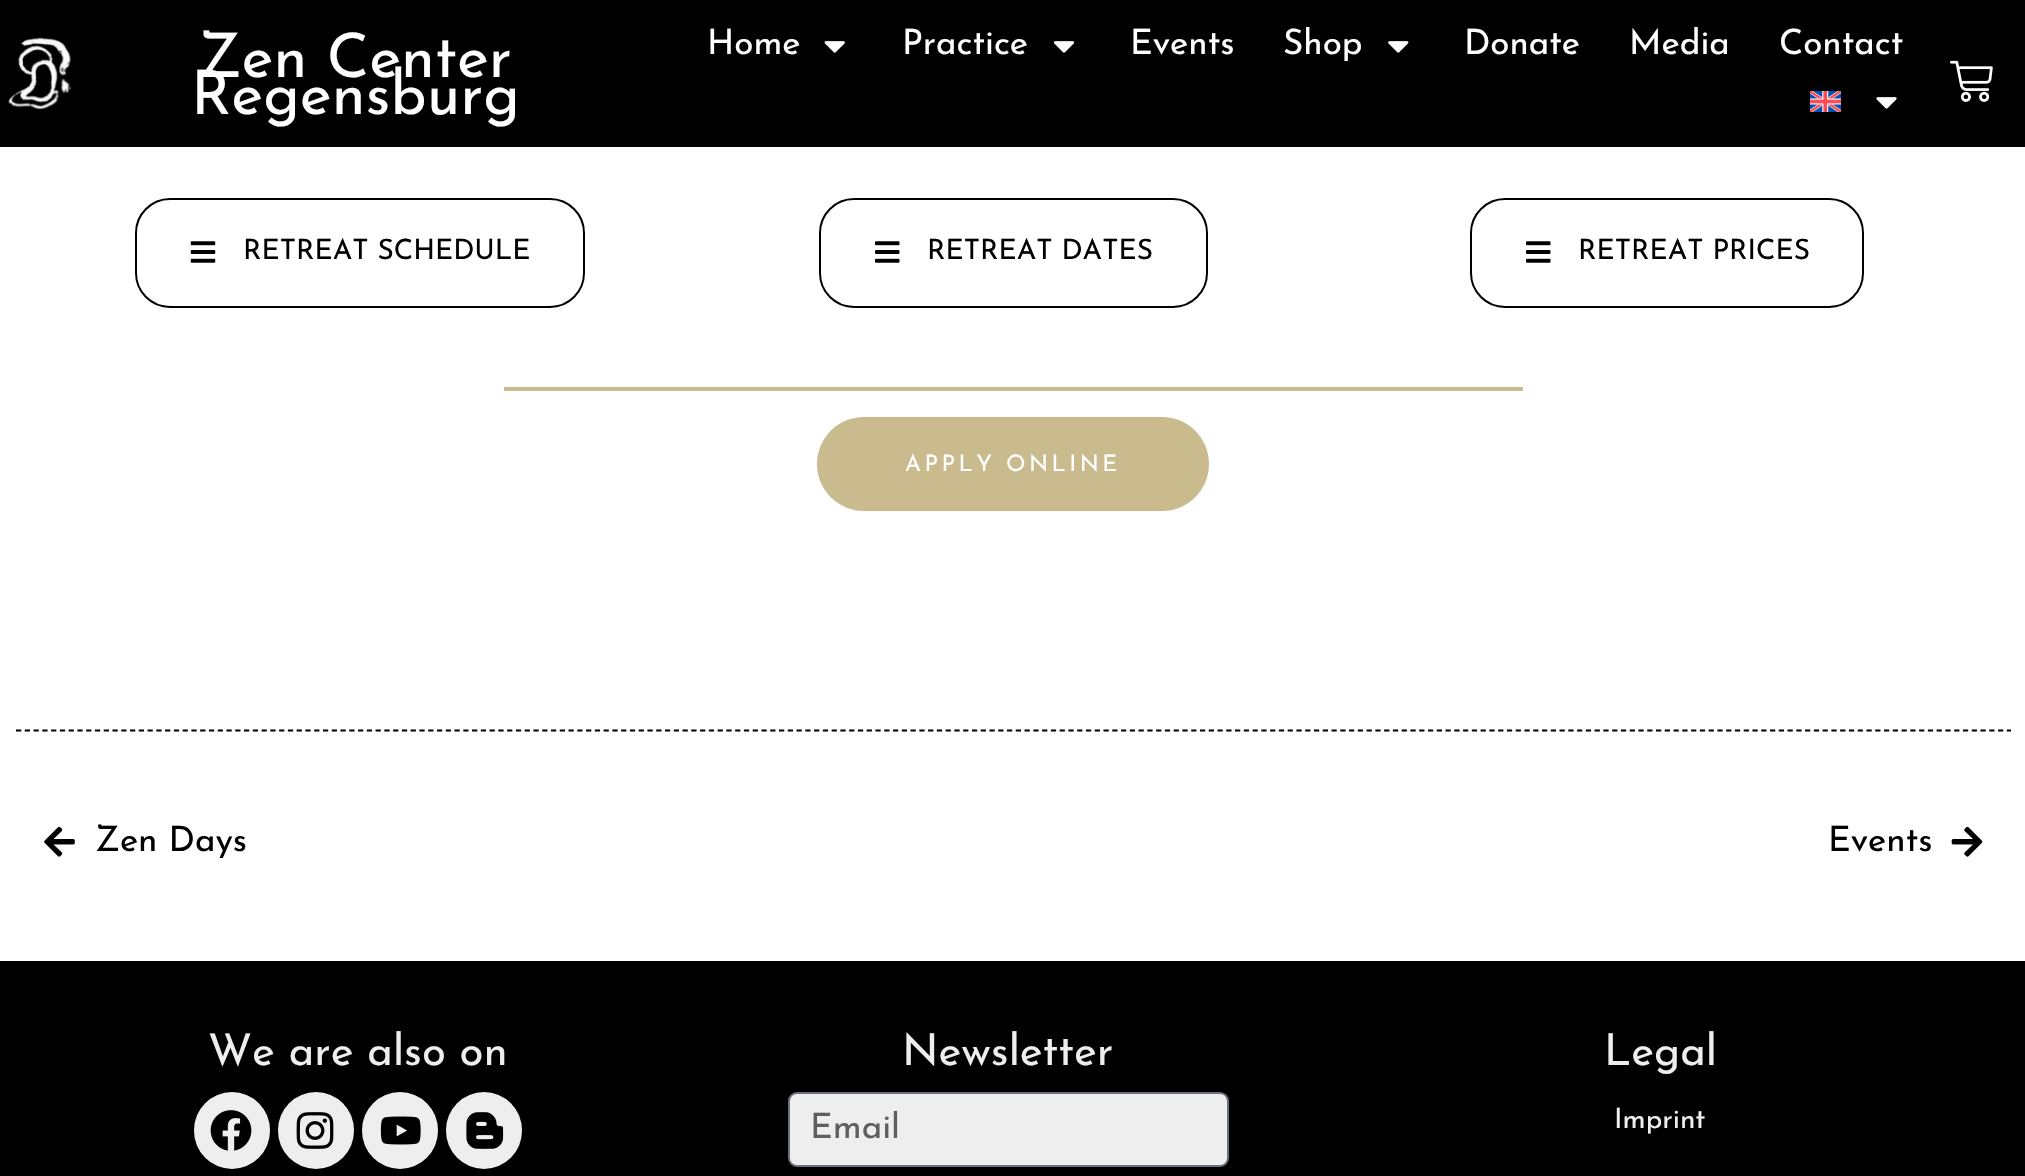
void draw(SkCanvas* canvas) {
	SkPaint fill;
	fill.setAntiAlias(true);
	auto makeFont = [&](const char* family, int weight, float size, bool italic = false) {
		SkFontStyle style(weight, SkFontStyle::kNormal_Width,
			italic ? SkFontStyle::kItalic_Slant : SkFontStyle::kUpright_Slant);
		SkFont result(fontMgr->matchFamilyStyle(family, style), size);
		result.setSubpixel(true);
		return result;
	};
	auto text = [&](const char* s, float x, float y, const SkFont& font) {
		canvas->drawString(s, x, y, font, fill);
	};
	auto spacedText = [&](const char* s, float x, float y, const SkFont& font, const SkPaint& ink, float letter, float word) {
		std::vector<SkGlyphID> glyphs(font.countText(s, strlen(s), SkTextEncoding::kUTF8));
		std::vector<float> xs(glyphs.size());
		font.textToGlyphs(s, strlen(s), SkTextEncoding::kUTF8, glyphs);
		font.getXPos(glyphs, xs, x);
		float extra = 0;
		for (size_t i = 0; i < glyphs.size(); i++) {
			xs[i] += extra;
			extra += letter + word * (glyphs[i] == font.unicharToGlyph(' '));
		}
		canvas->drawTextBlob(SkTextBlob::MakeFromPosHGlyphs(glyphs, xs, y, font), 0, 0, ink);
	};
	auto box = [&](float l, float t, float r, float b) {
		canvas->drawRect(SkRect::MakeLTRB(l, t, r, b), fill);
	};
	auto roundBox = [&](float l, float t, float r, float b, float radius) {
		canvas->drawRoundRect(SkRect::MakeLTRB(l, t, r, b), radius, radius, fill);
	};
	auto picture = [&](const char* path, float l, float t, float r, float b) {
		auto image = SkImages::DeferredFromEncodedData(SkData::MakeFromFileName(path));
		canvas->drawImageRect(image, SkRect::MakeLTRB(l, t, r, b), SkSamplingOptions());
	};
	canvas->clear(0xFFFFFFFF);
	fill.setColor(0xFF000000);
	box(0, 0, 2025, 147);
	picture("image0.png", 8, 37, 72, 110);
	picture("image1.png", 824, 41, 845, 53);
	picture("image2.png", 1053, 41, 1075, 53);
	picture("image3.png", 1388, 41, 1409, 53);
	picture("image4.png", 1810, 91, 1841, 112);
	picture("image5.png", 1876, 97, 1897, 109);
	picture("image6.png", 1950, 60, 1993, 102);
	fill.setStyle(SkPaint::kStroke_Style);
	fill.setStrokeWidth(2);
	canvas->drawRoundRect(SkRect::MakeLTRB(136, 199, 584, 307), 34, 34, fill);
	picture("image7.png", 190, 241, 216, 263);
	canvas->drawRoundRect(SkRect::MakeLTRB(820, 199, 1207, 307), 34, 34, fill);
	picture("image8.png", 875, 241, 900, 263);
	canvas->drawRoundRect(SkRect::MakeLTRB(1471, 199, 1863, 307), 34, 34, fill);
	picture("image8.png", 1526, 241, 1551, 263);
	fill.setStyle(SkPaint::kFill_Style);
	fill.setColor(0xFFC9BB8D);
	box(504, 387, 1523, 391);
	roundBox(817, 417, 1209, 511, 47);
	fill.setStyle(SkPaint::kStroke_Style);
	fill.setStrokeWidth(1.8f);
	fill.setColor(0xFF000000);
	fill.setPathEffect(SkDashPathEffect::Make({{5.25f, 3.52f}}, 0));
	canvas->drawPath(SkPathBuilder().moveTo(16, 730.5f).lineTo(2011, 730.5f).detach(), fill);
	fill.setPathEffect(nullptr);
	picture("image9.png", 44, 826, 75, 857);
	picture("image10.png", 1951, 826, 1983, 857);
	fill.setStyle(SkPaint::kFill_Style);
	box(0, 961, 2025, 1176);
	fill.setColor(0xFFEEEEEE);
	roundBox(194, 1092, 270, 1169, 38);
	picture("image11.png", 210, 1110, 252, 1151);
	roundBox(278, 1092, 354, 1169, 38);
	picture("image12.png", 296, 1112, 334, 1149);
	roundBox(362, 1092, 438, 1169, 38);
	picture("image13.png", 380, 1116, 421, 1145);
	roundBox(446, 1092, 522, 1169, 38);
	picture("image14.png", 466, 1112, 504, 1149);
	canvas->drawRoundRect(SkRect::MakeLTRB(789, 1093, 1228, 1166), 8, 8, fill);
	fill.setStyle(SkPaint::kStroke_Style);
	fill.setStrokeWidth(2);
	fill.setColor(0xFF69727D);
	canvas->drawRoundRect(SkRect::MakeLTRB(789, 1093, 1228, 1166), 8, 8, fill);
	auto font1 = makeFont("Josefin Sans", 100, 61.25f);
	fill.setStyle(SkPaint::kFill_Style);
	fill.setColor(0xFFFFFFFF);
	text("Zen Center", 198, 77, font1);
	text("Regensburg", 191, 114, font1);
	auto font2 = makeFont("Josefin Sans", 100, 35);
	text("Home", 707, 54, font2);
	text("Practice", 902, 54, font2);
	text("Events", 1130, 54, font2);
	text("Shop", 1283, 54, font2);
	text("Donate", 1464, 54, font2);
	text("Media", 1629, 54, font2);
	text("Contact", 1779, 54, font2);
	auto font3 = makeFont("Josefin Sans", 100, 28);
	fill.setColor(0xFF000000);
	text("RETREAT SCHEDULE", 243, 259, font3);
	text("RETREAT DATES", 927, 259, font3);
	text("RETREAT PRICES", 1578, 259, font3);
	auto font4 = makeFont("Josefin Sans", 100, 22.75f);
	fill.setColor(0xFFFFFFFF);
	spacedText("APPLY ONLINE", 905, 471, font4, fill, 3.5f, 0);
	fill.setColor(0xFF000000);
	text("Zen Days", 95, 851, font2);
	text("Events", 1828, 851, font2);
	auto font5 = makeFont("Josefin Sans", 100, 43.75f);
	fill.setColor(0xFFEEEEEE);
	text("We are also on", 208, 1065, font5);
	text("Newsletter", 902, 1065, font5);
	fill.setColor(0xFF5F5F5F);
	text("Email", 810, 1138, font2);
	fill.setColor(0xFFEEEEEE);
	text("Legal", 1604, 1065, font5);
	text("Imprint", 1614, 1128, font3);
}
